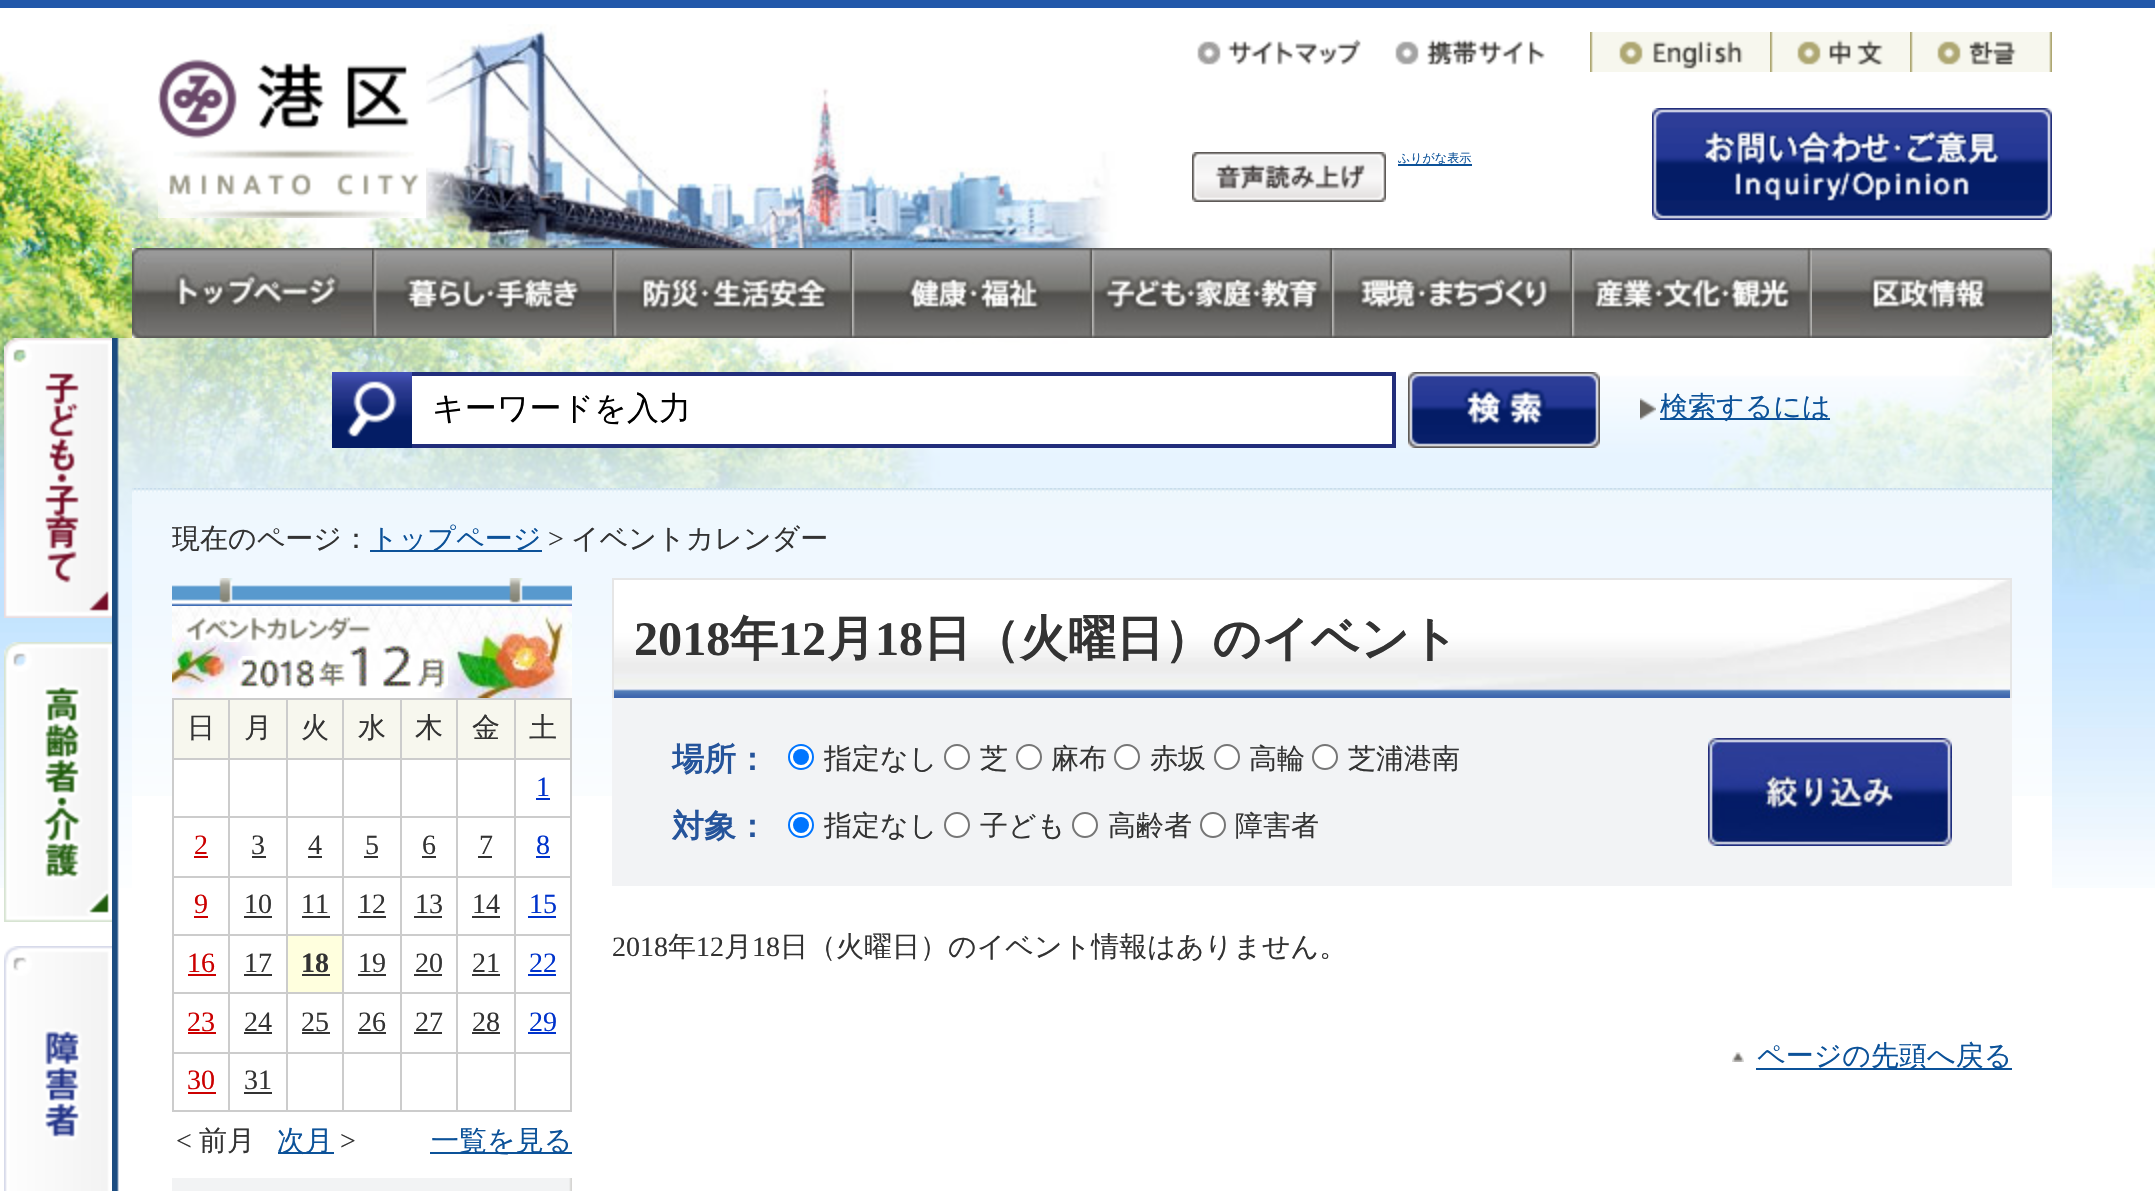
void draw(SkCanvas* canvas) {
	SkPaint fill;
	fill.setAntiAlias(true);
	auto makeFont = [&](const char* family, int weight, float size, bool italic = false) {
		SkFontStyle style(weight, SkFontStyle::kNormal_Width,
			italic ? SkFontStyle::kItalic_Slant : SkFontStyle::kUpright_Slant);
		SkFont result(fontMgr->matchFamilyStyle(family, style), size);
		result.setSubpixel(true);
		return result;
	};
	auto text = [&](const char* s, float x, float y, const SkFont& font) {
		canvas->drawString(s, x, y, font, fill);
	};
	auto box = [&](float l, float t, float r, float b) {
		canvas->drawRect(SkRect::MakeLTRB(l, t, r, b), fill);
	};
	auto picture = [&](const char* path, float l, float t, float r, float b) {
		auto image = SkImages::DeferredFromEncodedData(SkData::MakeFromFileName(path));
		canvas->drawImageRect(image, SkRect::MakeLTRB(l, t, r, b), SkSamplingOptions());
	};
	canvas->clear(0xFFFFFFFF);
	picture("image0.png", 0, 24, 2155, 888);
	fill.setColor(0xFF2258AA);
	box(0, 0, 2155, 8);
	picture("image1.png", 158, 59, 426, 218);
	picture("image2.png", 1197, 39, 1361, 65);
	picture("image3.png", 1395, 39, 1545, 65);
	picture("image4.png", 1590, 32, 1770, 72);
	picture("image5.png", 1770, 32, 1910, 72);
	picture("image6.png", 1910, 32, 2052, 72);
	picture("image7.png", 1192, 152, 1386, 202);
	fill.setColor(0xFF0C5299);
	box(1398, 164, 1472, 166);
	picture("image8.png", 1652, 108, 2052, 220);
	picture("image9.png", 341, 248, 372, 338);
	picture("image10.png", 132, 248, 341, 338);
	picture("image11.png", 580, 248, 612, 338);
	picture("image12.png", 372, 248, 580, 338);
	picture("image13.png", 612, 248, 852, 338);
	picture("image14.png", 852, 248, 1092, 338);
	picture("image15.png", 1092, 248, 1332, 338);
	picture("image16.png", 1332, 248, 1572, 338);
	picture("image17.png", 1572, 248, 1812, 338);
	picture("image18.png", 1812, 248, 1860, 338);
	picture("image19.png", 1860, 248, 2052, 338);
	picture("image20.png", 112, 338, 132, 1191);
	picture("image21.png", 4, 338, 112, 618);
	picture("image22.png", 4, 642, 112, 922);
	picture("image23.png", 4, 946, 112, 1191);
	fill.setColor(0x99FFFFFF);
	box(132, 338, 2052, 488);
	picture("image24.png", 332, 372, 412, 448);
	fill.setColor(0xFFFFFFFF);
	box(412, 376, 1392, 444);
	fill.setColor(0xFF212D7B);
	box(412, 372, 1396, 376);
	box(1392, 372, 1396, 448);
	box(412, 444, 1396, 448);
	picture("image25.png", 1408, 372, 1600, 448);
	picture("image26.png", 1640, 398, 1656, 420);
	fill.setColor(0xFF0C5299);
	box(1660, 418, 1830, 420);
	fill.setColor(0xFFFFFFFF);
	box(132, 796, 2052, 888);
	picture("image27.png", 132, 488, 2052, 796);
	fill.setColor(0xFF0C5299);
	box(370, 550, 542, 552);
	picture("image28.png", 172, 1178, 572, 1191);
	picture("image29.png", 172, 578, 572, 606);
	picture("image30.png", 172, 606, 572, 698);
	picture("image31.png", 184, 616, 371, 642);
	picture("image32.png", 237, 656, 345, 689);
	picture("image33.png", 349, 645, 448, 692);
	fill.setColor(0xFFFFFFFF);
	box(172, 760, 572, 796);
	fill.setColor(0xFFCCCCCC);
	box(172, 698, 572, 700);
	box(570, 698, 572, 1112);
	box(172, 1110, 572, 1112);
	box(172, 698, 174, 1112);
	fill.setColor(0xFFF7F7EE);
	box(174, 700, 228, 758);
	box(230, 700, 286, 758);
	fill.setColor(0xFFCCCCCC);
	box(514, 758, 572, 760);
	box(514, 816, 572, 818);
	box(514, 876, 572, 878);
	box(514, 934, 572, 936);
	box(514, 992, 572, 994);
	box(514, 1052, 572, 1054);
	box(514, 1052, 516, 1112);
	box(456, 1052, 516, 1054);
	box(514, 992, 516, 1054);
	box(456, 992, 516, 994);
	box(514, 934, 516, 994);
	box(456, 934, 516, 936);
	box(514, 876, 516, 936);
	box(456, 876, 516, 878);
	box(514, 816, 516, 878);
	box(456, 816, 516, 818);
	box(514, 758, 516, 818);
	box(456, 758, 516, 760);
	box(456, 1052, 458, 1112);
	box(400, 1052, 458, 1054);
	box(456, 992, 458, 1054);
	box(400, 992, 458, 994);
	box(456, 934, 458, 994);
	box(400, 934, 458, 936);
	box(456, 876, 458, 936);
	box(400, 876, 458, 878);
	box(456, 816, 458, 878);
	box(400, 816, 458, 818);
	box(456, 758, 458, 818);
	box(400, 758, 458, 760);
	box(400, 1052, 402, 1112);
	box(342, 1052, 402, 1054);
	box(400, 992, 402, 1054);
	box(342, 992, 402, 994);
	box(400, 934, 402, 994);
	box(342, 934, 402, 936);
	box(400, 876, 402, 936);
	box(342, 876, 402, 878);
	box(400, 816, 402, 878);
	box(342, 816, 402, 818);
	box(400, 758, 402, 818);
	box(342, 758, 402, 760);
	box(342, 1052, 344, 1112);
	box(286, 1052, 344, 1054);
	box(342, 992, 344, 1054);
	box(286, 992, 344, 994);
	box(342, 934, 344, 994);
	box(286, 934, 344, 936);
	box(342, 876, 344, 936);
	box(286, 876, 344, 878);
	box(342, 816, 344, 878);
	box(286, 816, 344, 818);
	box(342, 758, 344, 818);
	box(286, 758, 344, 760);
	box(286, 1052, 288, 1112);
	box(228, 1052, 288, 1054);
	box(286, 992, 288, 1054);
	box(228, 992, 288, 994);
	box(286, 934, 288, 994);
	box(228, 934, 288, 936);
	box(286, 876, 288, 936);
	box(228, 876, 288, 878);
	box(286, 816, 288, 878);
	box(228, 816, 288, 818);
	box(286, 758, 288, 818);
	box(228, 758, 288, 760);
	box(228, 1052, 230, 1112);
	box(172, 1052, 230, 1054);
	box(228, 992, 230, 1054);
	box(172, 992, 230, 994);
	box(228, 934, 230, 994);
	box(172, 934, 230, 936);
	box(228, 876, 230, 936);
	box(172, 876, 230, 878);
	box(228, 816, 230, 878);
	box(172, 816, 230, 818);
	box(228, 758, 230, 818);
	box(172, 758, 230, 760);
	box(228, 698, 230, 760);
	fill.setColor(0xFFF7F7EE);
	box(288, 700, 342, 758);
	fill.setColor(0xFFCCCCCC);
	box(286, 698, 288, 760);
	fill.setColor(0xFFF7F7EE);
	box(344, 700, 400, 758);
	fill.setColor(0xFFCCCCCC);
	box(342, 698, 344, 760);
	fill.setColor(0xFFF7F7EE);
	box(402, 700, 456, 758);
	fill.setColor(0xFFCCCCCC);
	box(400, 698, 402, 760);
	fill.setColor(0xFFF7F7EE);
	box(458, 700, 514, 758);
	fill.setColor(0xFFCCCCCC);
	box(456, 698, 458, 760);
	fill.setColor(0xFFF7F7EE);
	box(516, 700, 570, 758);
	fill.setColor(0xFFCCCCCC);
	box(514, 698, 516, 760);
	fill.setColor(0xFF0033CC);
	box(536, 798, 550, 800);
	fill.setColor(0xFFCC0000);
	box(194, 856, 208, 858);
	fill.setColor(0xFF333333);
	box(252, 856, 266, 858);
	box(308, 856, 322, 858);
	box(364, 856, 378, 858);
	box(422, 856, 436, 858);
	box(478, 856, 492, 858);
	fill.setColor(0xFF0033CC);
	box(536, 856, 550, 858);
	fill.setColor(0xFFCC0000);
	box(194, 916, 208, 918);
	fill.setColor(0xFF333333);
	box(244, 916, 272, 918);
	box(302, 916, 330, 918);
	box(358, 916, 386, 918);
	box(414, 916, 442, 918);
	box(472, 916, 500, 918);
	fill.setColor(0xFF0033CC);
	box(528, 916, 556, 918);
	fill.setColor(0xFFCC0000);
	box(188, 974, 216, 976);
	fill.setColor(0xFF333333);
	box(244, 974, 272, 976);
	fill.setColor(0xFFFFFFDE);
	box(288, 936, 342, 992);
	fill.setColor(0xFF333333);
	box(302, 974, 330, 976);
	box(358, 974, 386, 976);
	box(414, 974, 442, 976);
	box(472, 974, 500, 976);
	fill.setColor(0xFF0033CC);
	box(528, 974, 556, 976);
	fill.setColor(0xFFCC0000);
	box(188, 1032, 216, 1034);
	fill.setColor(0xFF333333);
	box(244, 1032, 272, 1034);
	box(302, 1032, 330, 1034);
	box(358, 1032, 386, 1034);
	box(414, 1032, 442, 1034);
	box(472, 1032, 500, 1034);
	fill.setColor(0xFF0033CC);
	box(528, 1032, 556, 1034);
	fill.setColor(0xFFCC0000);
	box(188, 1092, 216, 1094);
	fill.setColor(0xFF333333);
	box(244, 1092, 272, 1094);
	fill.setColor(0xFF0C5299);
	box(278, 1152, 334, 1154);
	box(430, 1152, 572, 1154);
	picture("image34.png", 614, 580, 2010, 698);
	fill.setColor(0xFFE6E6E6);
	box(612, 578, 2012, 580);
	box(2010, 578, 2012, 698);
	box(612, 578, 614, 698);
	fill.setColor(0xFFF2F3F5);
	box(612, 698, 2012, 886);
	fill.setColor(0xFFFFFFFF);
	canvas->drawCircle(801, 757, 12, fill);
	fill.setStyle(SkPaint::kStroke_Style);
	fill.setStrokeWidth(2);
	fill.setColor(0xFF0075FF);
	canvas->drawCircle(801, 757, 12, fill);
	fill.setStyle(SkPaint::kFill_Style);
	canvas->drawCircle(801, 757, 8, fill);
	fill.setColor(0xFFFFFFFF);
	canvas->drawCircle(957, 757, 12, fill);
	fill.setStyle(SkPaint::kStroke_Style);
	fill.setColor(0xFF767676);
	canvas->drawCircle(957, 757, 12, fill);
	fill.setStyle(SkPaint::kFill_Style);
	fill.setColor(0xFFFFFFFF);
	canvas->drawCircle(1029, 757, 12, fill);
	fill.setStyle(SkPaint::kStroke_Style);
	fill.setColor(0xFF767676);
	canvas->drawCircle(1029, 757, 12, fill);
	fill.setStyle(SkPaint::kFill_Style);
	fill.setColor(0xFFFFFFFF);
	canvas->drawCircle(1127, 757, 12, fill);
	fill.setStyle(SkPaint::kStroke_Style);
	fill.setColor(0xFF767676);
	canvas->drawCircle(1127, 757, 12, fill);
	fill.setStyle(SkPaint::kFill_Style);
	fill.setColor(0xFFFFFFFF);
	canvas->drawCircle(1227, 757, 12, fill);
	fill.setStyle(SkPaint::kStroke_Style);
	fill.setColor(0xFF767676);
	canvas->drawCircle(1227, 757, 12, fill);
	fill.setStyle(SkPaint::kFill_Style);
	fill.setColor(0xFFFFFFFF);
	canvas->drawCircle(1325, 757, 12, fill);
	fill.setStyle(SkPaint::kStroke_Style);
	fill.setColor(0xFF767676);
	canvas->drawCircle(1325, 757, 12, fill);
	fill.setStyle(SkPaint::kFill_Style);
	fill.setColor(0xFFFFFFFF);
	canvas->drawCircle(801, 825, 12, fill);
	fill.setStyle(SkPaint::kStroke_Style);
	fill.setColor(0xFF0075FF);
	canvas->drawCircle(801, 825, 12, fill);
	fill.setStyle(SkPaint::kFill_Style);
	canvas->drawCircle(801, 825, 8, fill);
	fill.setColor(0xFFFFFFFF);
	canvas->drawCircle(957, 825, 12, fill);
	fill.setStyle(SkPaint::kStroke_Style);
	fill.setColor(0xFF767676);
	canvas->drawCircle(957, 825, 12, fill);
	fill.setStyle(SkPaint::kFill_Style);
	fill.setColor(0xFFFFFFFF);
	canvas->drawCircle(1085, 825, 12, fill);
	fill.setStyle(SkPaint::kStroke_Style);
	fill.setColor(0xFF767676);
	canvas->drawCircle(1085, 825, 12, fill);
	fill.setStyle(SkPaint::kFill_Style);
	fill.setColor(0xFFFFFFFF);
	canvas->drawCircle(1213, 825, 12, fill);
	fill.setStyle(SkPaint::kStroke_Style);
	fill.setColor(0xFF767676);
	canvas->drawCircle(1213, 825, 12, fill);
	picture("image35.png", 1708, 738, 1952, 846);
	picture("image36.png", 1732, 1052, 1744, 1062);
	fill.setStyle(SkPaint::kFill_Style);
	fill.setColor(0xFF0C5299);
	box(1756, 1068, 2012, 1070);
	auto font1 = makeFont("WenQuanYi Zen Hei", 500, 12);
	text("ふりがな表示", 1398, 162, font1);
	auto font2 = makeFont("WenQuanYi Zen Hei", 500, 32);
	fill.setColor(0xFF000000);
	text("キーワードを入力", 432, 419, font2);
	auto font3 = makeFont("WenQuanYi Zen Hei", 500, 28);
	fill.setColor(0xFF0C5299);
	text("検索するには", 1660, 416, font3);
	fill.setColor(0xFF333333);
	text("現在のページ：", 172, 548, font3);
	fill.setColor(0xFF0C5299);
	text("トップページ", 370, 548, font3);
	auto font4 = makeFont("Liberation Serif", 400, 28);
	fill.setColor(0xFF333333);
	text(">", 548, 548, font4);
	text("イベントカレンダー", 571, 548, font3);
	text("日", 187, 737, font3);
	text("月", 244, 737, font3);
	text("火", 301, 737, font3);
	text("水", 358, 737, font3);
	text("木", 415, 737, font3);
	text("金", 472, 737, font3);
	text("土", 529, 737, font3);
	fill.setColor(0xFF0033CC);
	text("1", 536, 796, font4);
	fill.setColor(0xFFCC0000);
	text("2", 194, 854, font4);
	fill.setColor(0xFF333333);
	text("3", 251, 854, font4);
	text("4", 308, 854, font4);
	text("5", 365, 854, font4);
	text("6", 422, 854, font4);
	text("7", 479, 854, font4);
	fill.setColor(0xFF0033CC);
	text("8", 536, 854, font4);
	fill.setColor(0xFFCC0000);
	text("9", 194, 913, font4);
	fill.setColor(0xFF333333);
	text("10", 244, 913, font4);
	text("11", 301, 913, font4);
	text("12", 358, 913, font4);
	text("13", 415, 913, font4);
	text("14", 472, 913, font4);
	fill.setColor(0xFF0033CC);
	text("15", 529, 913, font4);
	fill.setColor(0xFFCC0000);
	text("16", 187, 972, font4);
	fill.setColor(0xFF333333);
	text("17", 244, 972, font4);
	auto font5 = makeFont("Liberation Serif", 700, 28);
	text("18", 301, 972, font5);
	text("19", 358, 972, font4);
	text("20", 415, 972, font4);
	text("21", 472, 972, font4);
	fill.setColor(0xFF0033CC);
	text("22", 529, 972, font4);
	fill.setColor(0xFFCC0000);
	text("23", 187, 1031, font4);
	fill.setColor(0xFF333333);
	text("24", 244, 1031, font4);
	text("25", 301, 1031, font4);
	text("26", 358, 1031, font4);
	text("27", 415, 1031, font4);
	text("28", 472, 1031, font4);
	fill.setColor(0xFF0033CC);
	text("29", 529, 1031, font4);
	fill.setColor(0xFFCC0000);
	text("30", 187, 1089, font4);
	fill.setColor(0xFF333333);
	text("31", 244, 1089, font4);
	text("<", 176, 1150, font4);
	text("前月", 199, 1150, font3);
	fill.setColor(0xFF0C5299);
	text("次月", 277, 1150, font3);
	fill.setColor(0xFF333333);
	text(">", 340, 1150, font4);
	fill.setColor(0xFF0C5299);
	text("一覧を見る", 431, 1150, font3);
	auto font6 = makeFont("Liberation Serif", 700, 48.2f);
	fill.setColor(0xFF333333);
	text("2018", 634, 655, font6);
	auto font7 = makeFont("WenQuanYi Zen Hei", 700, 48.2f);
	text("年", 730, 655, font7);
	text("12", 778, 655, font6);
	text("月", 827, 655, font7);
	text("18", 875, 655, font6);
	text("日（火曜日）のイベント", 923, 655, font7);
	auto font8 = makeFont("WenQuanYi Zen Hei", 700, 32);
	fill.setColor(0xFF25549B);
	text("場所：", 672, 770, font8);
	fill.setColor(0xFF333333);
	text("指定なし", 824, 768, font3);
	text("芝", 980, 768, font3);
	text("麻布", 1051, 768, font3);
	text("赤坂", 1150, 768, font3);
	text("高輪", 1249, 768, font3);
	text("芝浦港南", 1348, 768, font3);
	fill.setColor(0xFF25549B);
	text("対象：", 672, 837, font8);
	fill.setColor(0xFF333333);
	text("指定なし", 824, 835, font3);
	text("子ども", 980, 835, font3);
	text("高齢者", 1108, 835, font3);
	text("障害者", 1235, 835, font3);
	text("2018", 612, 956, font4);
	text("年", 668, 956, font3);
	text("12", 696, 956, font4);
	text("月", 724, 956, font3);
	text("18", 752, 956, font4);
	text("日（火曜日）のイベント情報はありません。", 780, 956, font3);
	fill.setColor(0xFF0C5299);
	text("ページの先頭へ戻る", 1757, 1065, font3);
}
